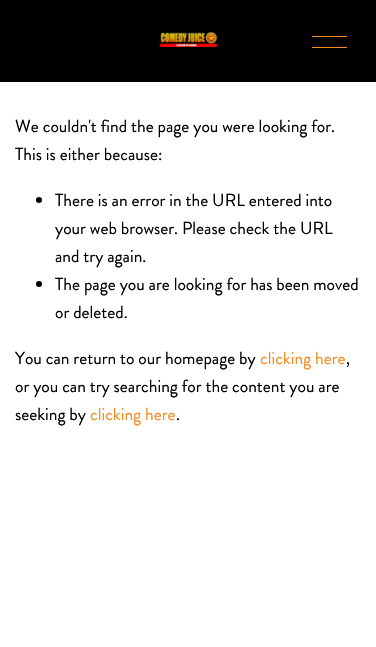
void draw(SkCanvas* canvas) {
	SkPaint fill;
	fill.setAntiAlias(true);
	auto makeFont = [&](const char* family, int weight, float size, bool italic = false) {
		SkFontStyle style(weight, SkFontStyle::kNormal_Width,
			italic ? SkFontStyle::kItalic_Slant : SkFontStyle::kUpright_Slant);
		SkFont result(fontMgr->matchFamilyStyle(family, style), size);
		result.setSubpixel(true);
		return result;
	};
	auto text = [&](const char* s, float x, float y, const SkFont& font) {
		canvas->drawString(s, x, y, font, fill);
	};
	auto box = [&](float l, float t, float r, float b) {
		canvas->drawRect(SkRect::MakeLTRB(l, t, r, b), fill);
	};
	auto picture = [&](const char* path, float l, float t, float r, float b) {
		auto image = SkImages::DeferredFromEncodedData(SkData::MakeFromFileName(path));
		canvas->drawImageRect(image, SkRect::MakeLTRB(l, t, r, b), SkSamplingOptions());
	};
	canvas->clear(0xFFFFFFFF);
	fill.setColor(0xFF000000);
	box(0, 0, 376, 82);
	picture("image0.png", 159, 31, 218, 47);
	fill.setColor(0xFFF68B1E);
	box(312, 36, 347, 37);
	box(312, 47, 347, 48);
	fill.setColor(0xFF000000);
	canvas->drawCircle(39, 200, 3, fill);
	canvas->drawCircle(39, 284, 3, fill);
	auto font1 = makeFont("Brandon Grotesque", 400, 17.5f);
	text("We couldn't find the page you were looking for.", 15, 132, font1);
	text("This is either because:", 15, 160, font1);
	text("There is an error in the URL entered into", 55, 206, font1);
	text("your web browser. Please check the URL", 55, 234, font1);
	text("and try again.", 55, 262, font1);
	text("The page you are looking for has been moved", 55, 290, font1);
	text("or deleted.", 55, 318, font1);
	text("You can return to our homepage by", 15, 364, font1);
	fill.setColor(0xFFF68B1E);
	text("clicking here", 260, 364, font1);
	fill.setColor(0xFF000000);
	text(",", 346, 364, font1);
	text("or you can try searching for the content you are", 15, 392, font1);
	text("seeking by", 15, 420, font1);
	fill.setColor(0xFFF68B1E);
	text("clicking here", 90, 420, font1);
	fill.setColor(0xFF000000);
	text(".", 176, 420, font1);
}
